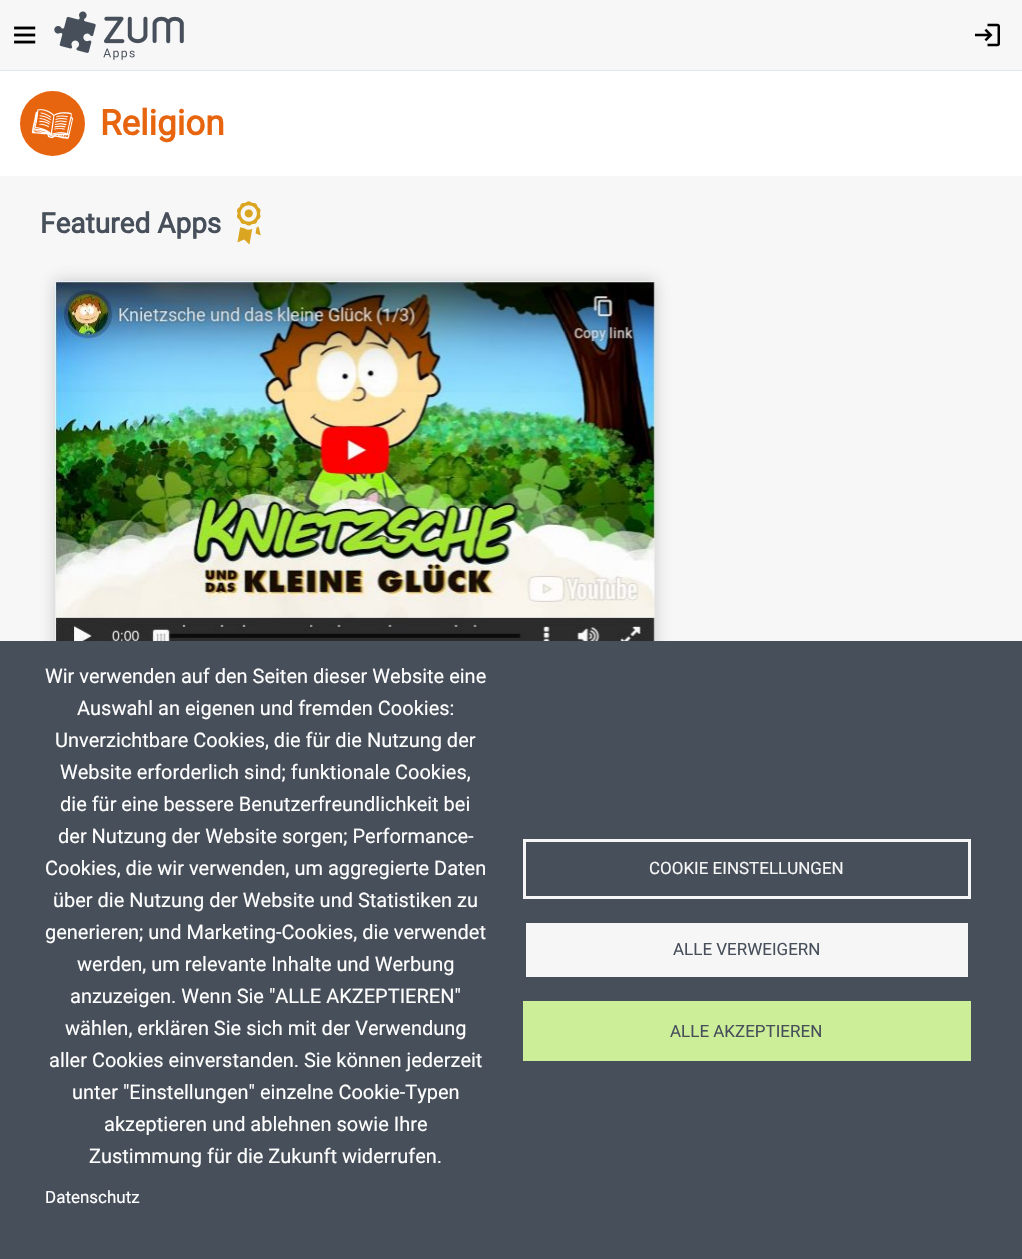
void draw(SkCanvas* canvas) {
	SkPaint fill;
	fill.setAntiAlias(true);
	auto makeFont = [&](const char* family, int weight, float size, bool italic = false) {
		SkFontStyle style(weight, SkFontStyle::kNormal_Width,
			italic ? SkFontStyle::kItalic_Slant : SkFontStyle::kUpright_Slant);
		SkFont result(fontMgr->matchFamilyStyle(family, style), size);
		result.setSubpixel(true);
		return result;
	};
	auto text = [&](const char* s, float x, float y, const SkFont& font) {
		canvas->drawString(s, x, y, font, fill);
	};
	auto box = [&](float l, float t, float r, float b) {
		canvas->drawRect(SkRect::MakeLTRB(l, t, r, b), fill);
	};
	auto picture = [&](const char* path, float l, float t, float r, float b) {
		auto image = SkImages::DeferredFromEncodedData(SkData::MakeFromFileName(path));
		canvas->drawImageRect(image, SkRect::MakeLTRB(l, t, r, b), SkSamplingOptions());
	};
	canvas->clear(0xFFFFFFFF);
	fill.setColor(0xFFF7F7F7);
	box(0, 0, 1022, 70);
	fill.setColor(0xFFE1E6EC);
	box(0, 70, 1022, 71);
	picture("image0.png", 14, 26, 36, 44);
	picture("image1.png", 54, 11, 184, 60);
	picture("image2.png", 975, 23, 1000, 47);
	fill.setColor(0xFFE86510);
	canvas->drawCircle(52.5f, 123.5f, 32.5f, fill);
	picture("image3.png", 31, 109, 74, 139);
	fill.setColor(0xFFF7F7F7);
	box(0, 176, 1022, 641);
	picture("image4.png", 237, 201, 261, 245);
	fill.setColor(0x4D5D5D5D);
	fill.setMaskFilter(SkMaskFilter::MakeBlur(kNormal_SkBlurStyle, 7.5f));
	canvas->drawRect(SkRect::MakeLTRB(55, 281, 655, 688), fill);
	fill.setMaskFilter(nullptr);
	picture("image5.png", 55, 281, 655, 641);
	fill.setColor(0xFF474F5A);
	box(0, 641, 1022, 1259);
	fill.setStyle(SkPaint::kStroke_Style);
	fill.setStrokeWidth(3);
	fill.setColor(0xFFF6F6F7);
	canvas->drawRect(SkRect::MakeLTRB(524.5f, 840.5f, 969.5f, 897.5f), fill);
	fill.setStyle(SkPaint::kFill_Style);
	box(526, 923, 968, 977);
	fill.setColor(0xFFCDEE99);
	box(523, 1001, 971, 1061);
	auto font1 = makeFont("Roboto", 700, 35);
	fill.setColor(0xFFE86510);
	text("Religion", 100, 135, font1);
	auto font2 = makeFont("Roboto", 700, 28);
	fill.setColor(0xFF474F5A);
	text("Featured Apps", 40, 233, font2);
	auto font3 = makeFont("Roboto", 400, 20);
	fill.setColor(0xFFFFFFFF);
	text("Wir verwenden auf den Seiten dieser Website eine", 45, 683, font3);
	text("Auswahl an eigenen und fremden Cookies:", 77, 715, font3);
	text("Unverzichtbare Cookies, die für die Nutzung der", 55, 747, font3);
	text("Website erforderlich sind; funktionale Cookies,", 60, 779, font3);
	text("die für eine bessere Benutzerfreundlichkeit bei", 60, 811, font3);
	text("der Nutzung der Website sorgen; Performance-", 58, 843, font3);
	text("Cookies, die wir verwenden, um aggregierte Daten", 45, 875, font3);
	text("über die Nutzung der Website und Statistiken zu", 53, 907, font3);
	text("generieren; und Marketing-Cookies, die verwendet", 45, 939, font3);
	text("werden, um relevante Inhalte und Werbung", 77, 971, font3);
	text("anzuzeigen. Wenn Sie \"ALLE AKZEPTIEREN\"", 70, 1003, font3);
	text("wählen, erklären Sie sich mit der Verwendung", 65, 1035, font3);
	text("aller Cookies einverstanden. Sie können jederzeit", 49, 1067, font3);
	text("unter \"Einstellungen\" einzelne Cookie-Typen", 72, 1099, font3);
	text("akzeptieren und ablehnen sowie Ihre", 104, 1131, font3);
	text("Zustimmung für die Zukunft widerrufen.", 89, 1163, font3);
	auto font4 = makeFont("Roboto", 400, 17);
	text("Datenschutz", 45, 1203, font4);
	fill.setColor(0xFFF6F6F7);
	text("COOKIE EINSTELLUNGEN", 649, 874, font4);
	fill.setColor(0xFF474F5A);
	text("ALLE VERWEIGERN", 673, 955, font4);
	text("ALLE AKZEPTIEREN", 670, 1037, font4);
}
